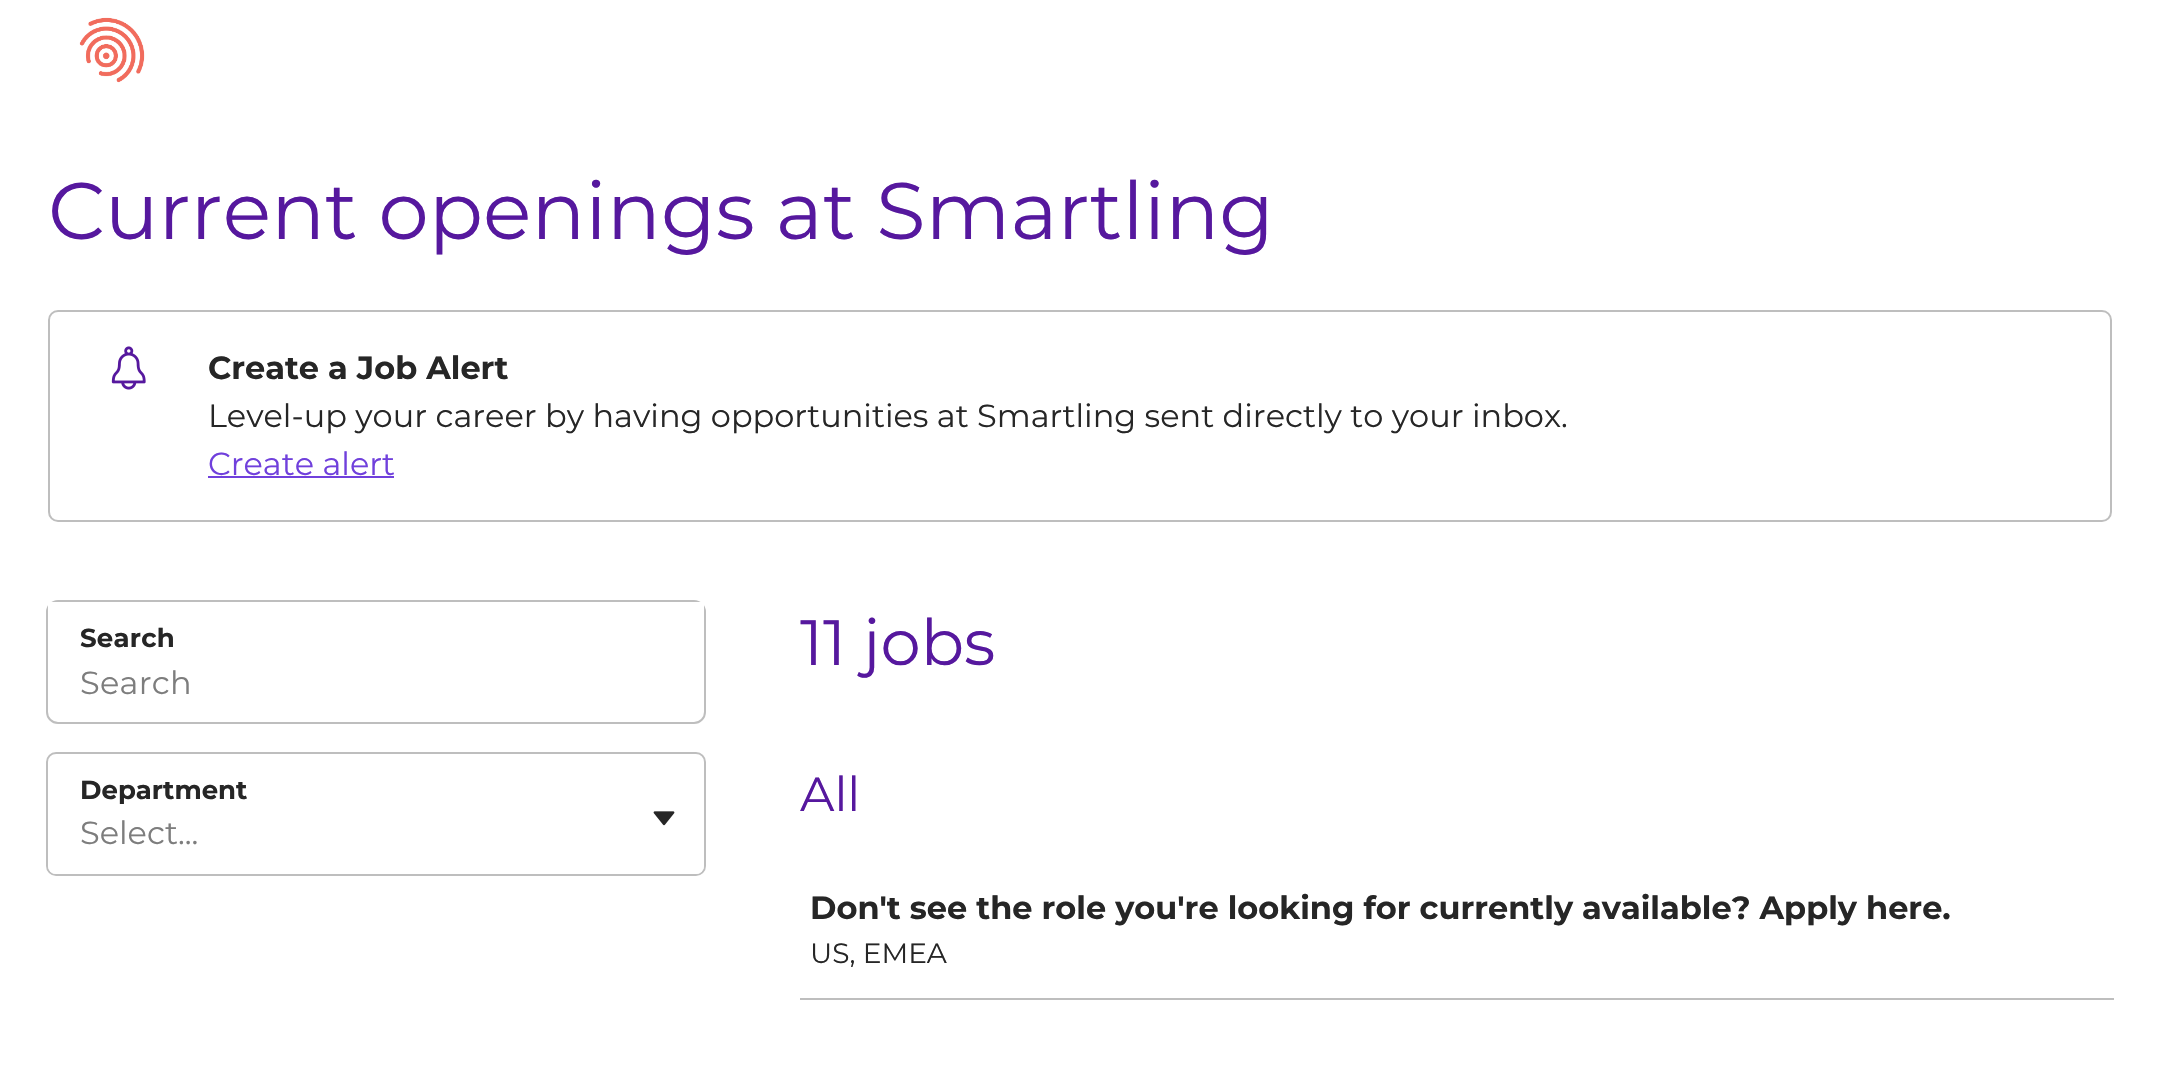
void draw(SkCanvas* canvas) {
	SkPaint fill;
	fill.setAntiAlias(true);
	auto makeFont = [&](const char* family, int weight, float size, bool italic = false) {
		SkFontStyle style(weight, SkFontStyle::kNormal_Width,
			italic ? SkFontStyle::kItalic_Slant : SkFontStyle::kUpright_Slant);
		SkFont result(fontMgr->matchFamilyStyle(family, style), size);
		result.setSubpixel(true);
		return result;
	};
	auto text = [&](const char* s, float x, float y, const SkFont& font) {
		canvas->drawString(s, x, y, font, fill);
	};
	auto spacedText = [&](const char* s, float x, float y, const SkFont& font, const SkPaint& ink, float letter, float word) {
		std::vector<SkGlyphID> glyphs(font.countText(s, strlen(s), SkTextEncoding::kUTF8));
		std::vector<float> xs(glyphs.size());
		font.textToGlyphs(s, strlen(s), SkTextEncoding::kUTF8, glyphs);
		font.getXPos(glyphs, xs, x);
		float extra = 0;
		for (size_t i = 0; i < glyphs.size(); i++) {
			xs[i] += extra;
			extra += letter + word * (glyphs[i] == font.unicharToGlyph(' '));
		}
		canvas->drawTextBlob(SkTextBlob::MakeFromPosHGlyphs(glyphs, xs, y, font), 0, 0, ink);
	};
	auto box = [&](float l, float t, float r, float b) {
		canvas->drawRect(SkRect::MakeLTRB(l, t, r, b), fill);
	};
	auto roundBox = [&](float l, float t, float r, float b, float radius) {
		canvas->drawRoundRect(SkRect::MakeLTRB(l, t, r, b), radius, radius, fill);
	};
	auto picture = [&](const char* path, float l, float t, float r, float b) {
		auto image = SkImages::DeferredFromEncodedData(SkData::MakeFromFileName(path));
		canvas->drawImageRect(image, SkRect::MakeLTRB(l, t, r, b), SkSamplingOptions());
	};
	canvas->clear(0xFFFFFFFF);
	picture("image0.png", 79, 17, 145, 83);
	fill.setStyle(SkPaint::kStroke_Style);
	fill.setStrokeWidth(2);
	fill.setColor(0xFFBEBEBE);
	canvas->drawRoundRect(SkRect::MakeLTRB(49, 311, 2111, 521), 9, 9, fill);
	picture("image1.png", 111, 346, 146, 390);
	fill.setStyle(SkPaint::kFill_Style);
	fill.setColor(0xFF7040DC);
	box(208, 476, 394, 478);
	fill.setStyle(SkPaint::kStroke_Style);
	fill.setColor(0xFFBEBEBE);
	canvas->drawRoundRect(SkRect::MakeLTRB(47, 601, 705, 723), 11, 11, fill);
	fill.setStyle(SkPaint::kFill_Style);
	fill.setColor(0xFFFFFFFF);
	box(48, 602, 704, 612);
	fill.setStyle(SkPaint::kStroke_Style);
	fill.setColor(0xFFBEBEBE);
	canvas->drawRoundRect(SkRect::MakeLTRB(47, 753, 705, 875), 9, 9, fill);
	fill.setStyle(SkPaint::kFill_Style);
	fill.setColor(0xFFFFFFFF);
	roundBox(48, 806, 704, 874, 8);
	picture("image2.png", 653, 811, 675, 826);
	fill.setColor(0xFFBEBEBE);
	box(800, 998, 2114, 1000);
	auto font1 = makeFont("Montserrat", 400, 80);
	fill.setColor(0xFF56189E);
	text("Current openings at Smartling", 48, 239, font1);
	auto font2 = makeFont("Montserrat", 700, 32);
	fill.setColor(0xFF262626);
	text("Create a Job Alert", 208, 379, font2);
	auto font3 = makeFont("Montserrat", 400, 32);
	text("Level-up your career by having opportunities at Smartling sent directly to your inbox.", 208, 427, font3);
	fill.setColor(0xFF7040DC);
	text("Create alert", 208, 475, font3);
	auto font4 = makeFont("Montserrat", 700, 26);
	fill.setColor(0xFF262626);
	spacedText("Search", 80, 647, font4, fill, 0.25f, 0);
	fill.setColor(0xFF7D7D7D);
	spacedText("Search", 80, 694, font3, fill, 0.25f, 0);
	fill.setColor(0xFF262626);
	text("Department", 80, 799, font4);
	fill.setColor(0xFF7D7D7D);
	text("Select...", 80, 844, font3);
	auto font5 = makeFont("Montserrat", 400, 64);
	fill.setColor(0xFF56189E);
	text("11 jobs", 800, 665, font5);
	auto font6 = makeFont("Montserrat", 400, 48);
	text("All", 800, 811, font6);
	fill.setColor(0xFF262626);
	text("Don't see the role you're looking for currently available? Apply here.", 810, 919, font2);
	auto font7 = makeFont("Montserrat", 400, 28);
	text("US, EMEA", 810, 963, font7);
}
